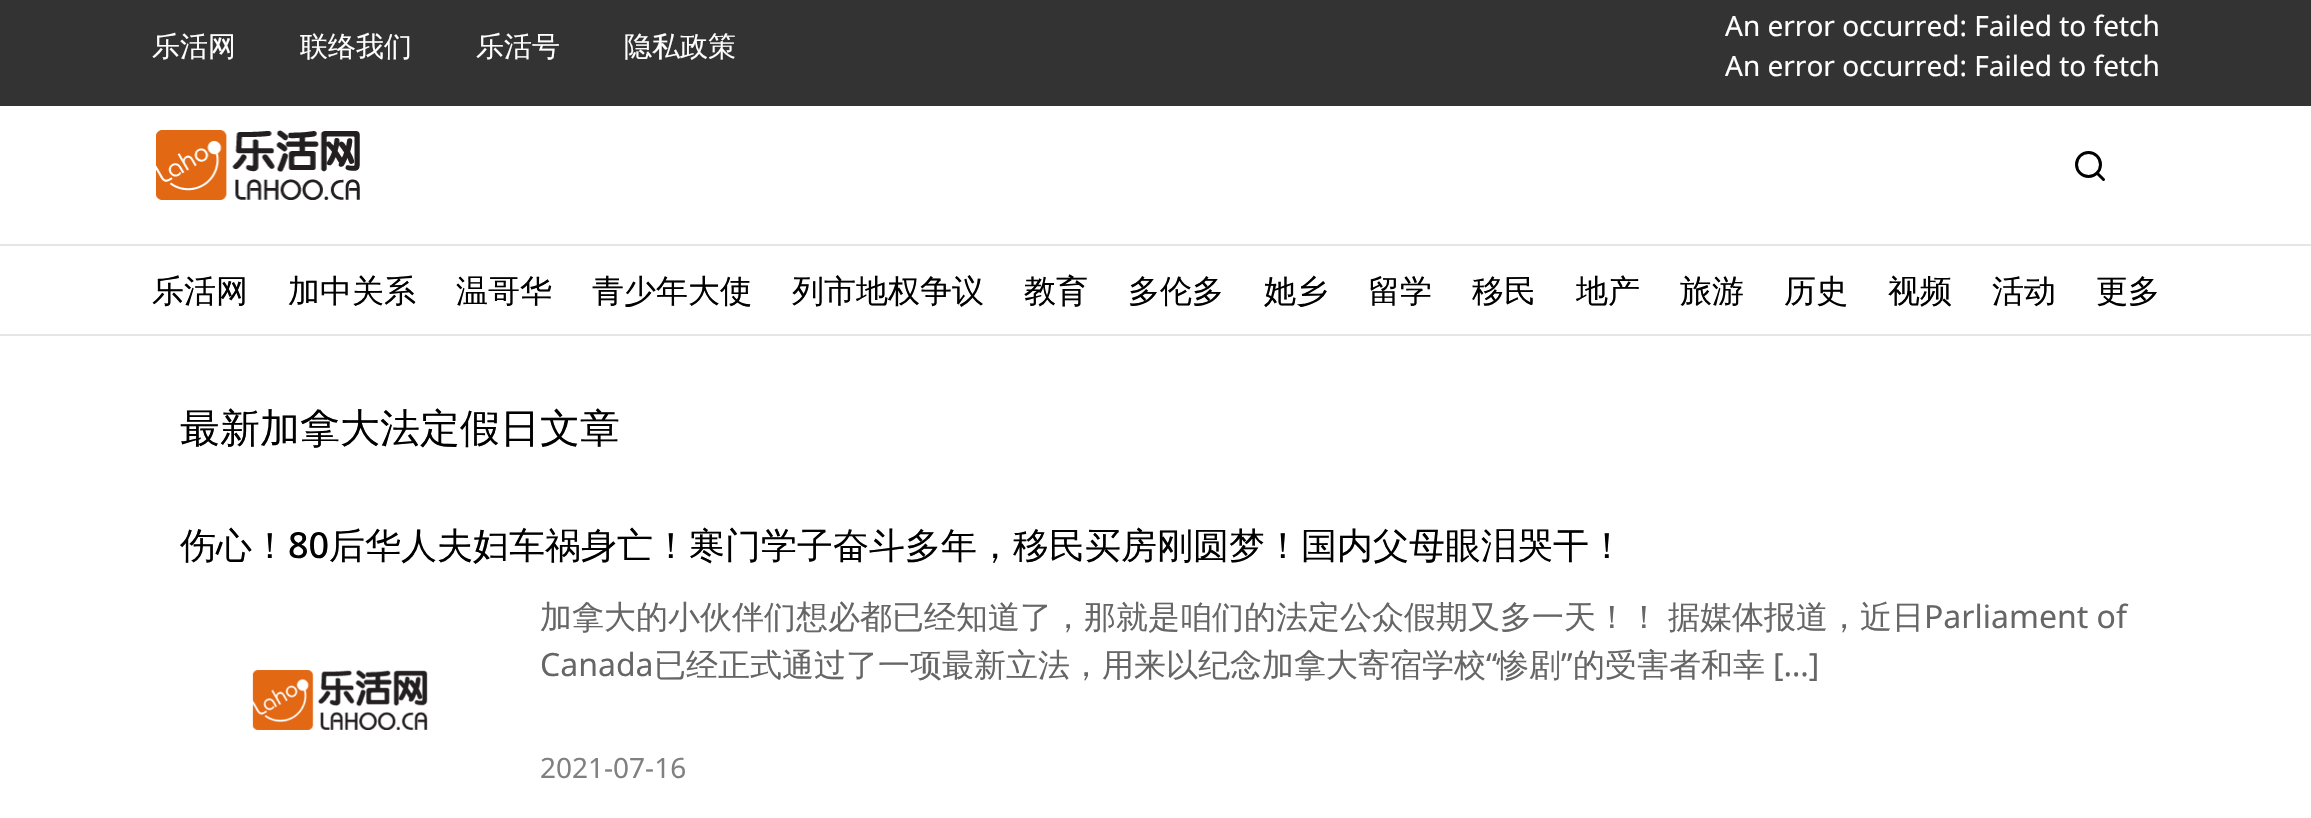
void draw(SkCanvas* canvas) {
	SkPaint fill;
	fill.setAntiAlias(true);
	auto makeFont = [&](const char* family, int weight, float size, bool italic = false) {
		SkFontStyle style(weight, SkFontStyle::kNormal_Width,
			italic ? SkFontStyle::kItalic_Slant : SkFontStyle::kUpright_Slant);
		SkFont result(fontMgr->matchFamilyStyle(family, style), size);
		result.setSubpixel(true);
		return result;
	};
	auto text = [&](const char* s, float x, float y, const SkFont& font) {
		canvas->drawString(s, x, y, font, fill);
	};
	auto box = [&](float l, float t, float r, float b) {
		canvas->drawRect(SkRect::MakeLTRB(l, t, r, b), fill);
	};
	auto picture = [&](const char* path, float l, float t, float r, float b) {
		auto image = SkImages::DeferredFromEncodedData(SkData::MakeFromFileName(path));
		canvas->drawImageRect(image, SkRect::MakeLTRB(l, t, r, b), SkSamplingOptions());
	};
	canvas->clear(0xFFFFFFFF);
	fill.setColor(0xFF333333);
	box(0, 0, 2311, 106);
	picture("image0.png", 156, 130, 360, 200);
	fill.setStyle(SkPaint::kStroke_Style);
	fill.setStrokeWidth(3);
	fill.setColor(0xFF000000);
	canvas->drawCircle(2088.5f, 164.5f, 12, fill);
	fill.setStrokeCap(SkPaint::kRound_Cap);
	fill.setStrokeJoin(SkPaint::kRound_Join);
	canvas->drawPath(SkPathBuilder().moveTo(2103.5f, 179.5f).lineTo(2097, 173).detach(), fill);
	fill.setStyle(SkPaint::kFill_Style);
	fill.setColor(0xFFE6E6E6);
	box(0, 244, 2311, 246);
	box(0, 334, 2311, 336);
	picture("image1.png", 252, 670, 428, 730);
	auto font1 = makeFont("WenQuanYi Zen Hei", 500, 28);
	fill.setColor(0xFFFFFFFF);
	text("乐活网", 152, 56, font1);
	text("联络我们", 300, 56, font1);
	text("乐活号", 476, 56, font1);
	text("隐私政策", 624, 56, font1);
	auto font2 = makeFont("Noto Sans", 400, 28);
	text("An error occurred: Failed to fetch", 1725, 36, font2);
	text("An error occurred: Failed to fetch", 1725, 76, font2);
	auto font3 = makeFont("WenQuanYi Zen Hei", 500, 32);
	fill.setColor(0xFF000000);
	text("乐活网", 152, 302, font3);
	text("加中关系", 288, 302, font3);
	text("温哥华", 456, 302, font3);
	text("青少年大使", 592, 302, font3);
	text("列市地权争议", 792, 302, font3);
	text("教育", 1024, 302, font3);
	text("多伦多", 1128, 302, font3);
	text("她乡", 1264, 302, font3);
	text("留学", 1368, 302, font3);
	text("移民", 1472, 302, font3);
	text("地产", 1576, 302, font3);
	text("旅游", 1680, 302, font3);
	text("历史", 1784, 302, font3);
	text("视频", 1888, 302, font3);
	text("活动", 1992, 302, font3);
	text("更多", 2096, 302, font3);
	auto font4 = makeFont("WenQuanYi Zen Hei", 500, 40);
	text("最新加拿大法定假日文章", 180, 442, font4);
	auto font5 = makeFont("WenQuanYi Zen Hei", 500, 36);
	text("伤心！", 180, 558, font5);
	auto font6 = makeFont("Noto Sans", 500, 36);
	text("80", 288, 558, font6);
	text("后华人夫妇车祸身亡！寒门学子奋斗多年，移民买房刚圆梦！国内父母眼泪哭干！", 329, 558, font5);
	fill.setColor(0xFF666666);
	text("加拿大的小伙伴们想必都已经知道了，那就是咱们的法定公众假期又多一天！！", 540, 628, font3);
	text("据媒体报道，近日", 1668, 628, font3);
	auto font7 = makeFont("Noto Sans", 400, 32);
	text("Parliament of", 1924, 628, font7);
	text("Canada", 540, 676, font7);
	text("已经正式通过了一项最新立法，用来以纪念加拿大寄宿学校", 654, 676, font3);
	text("“", 1486, 676, font7);
	text("惨剧", 1497, 676, font3);
	text("”", 1561, 676, font7);
	text("的受害者和幸", 1573, 676, font3);
	text("[…]", 1773, 676, font7);
	fill.setColor(0xFF808080);
	text("2021-07-16", 540, 778, font2);
}
